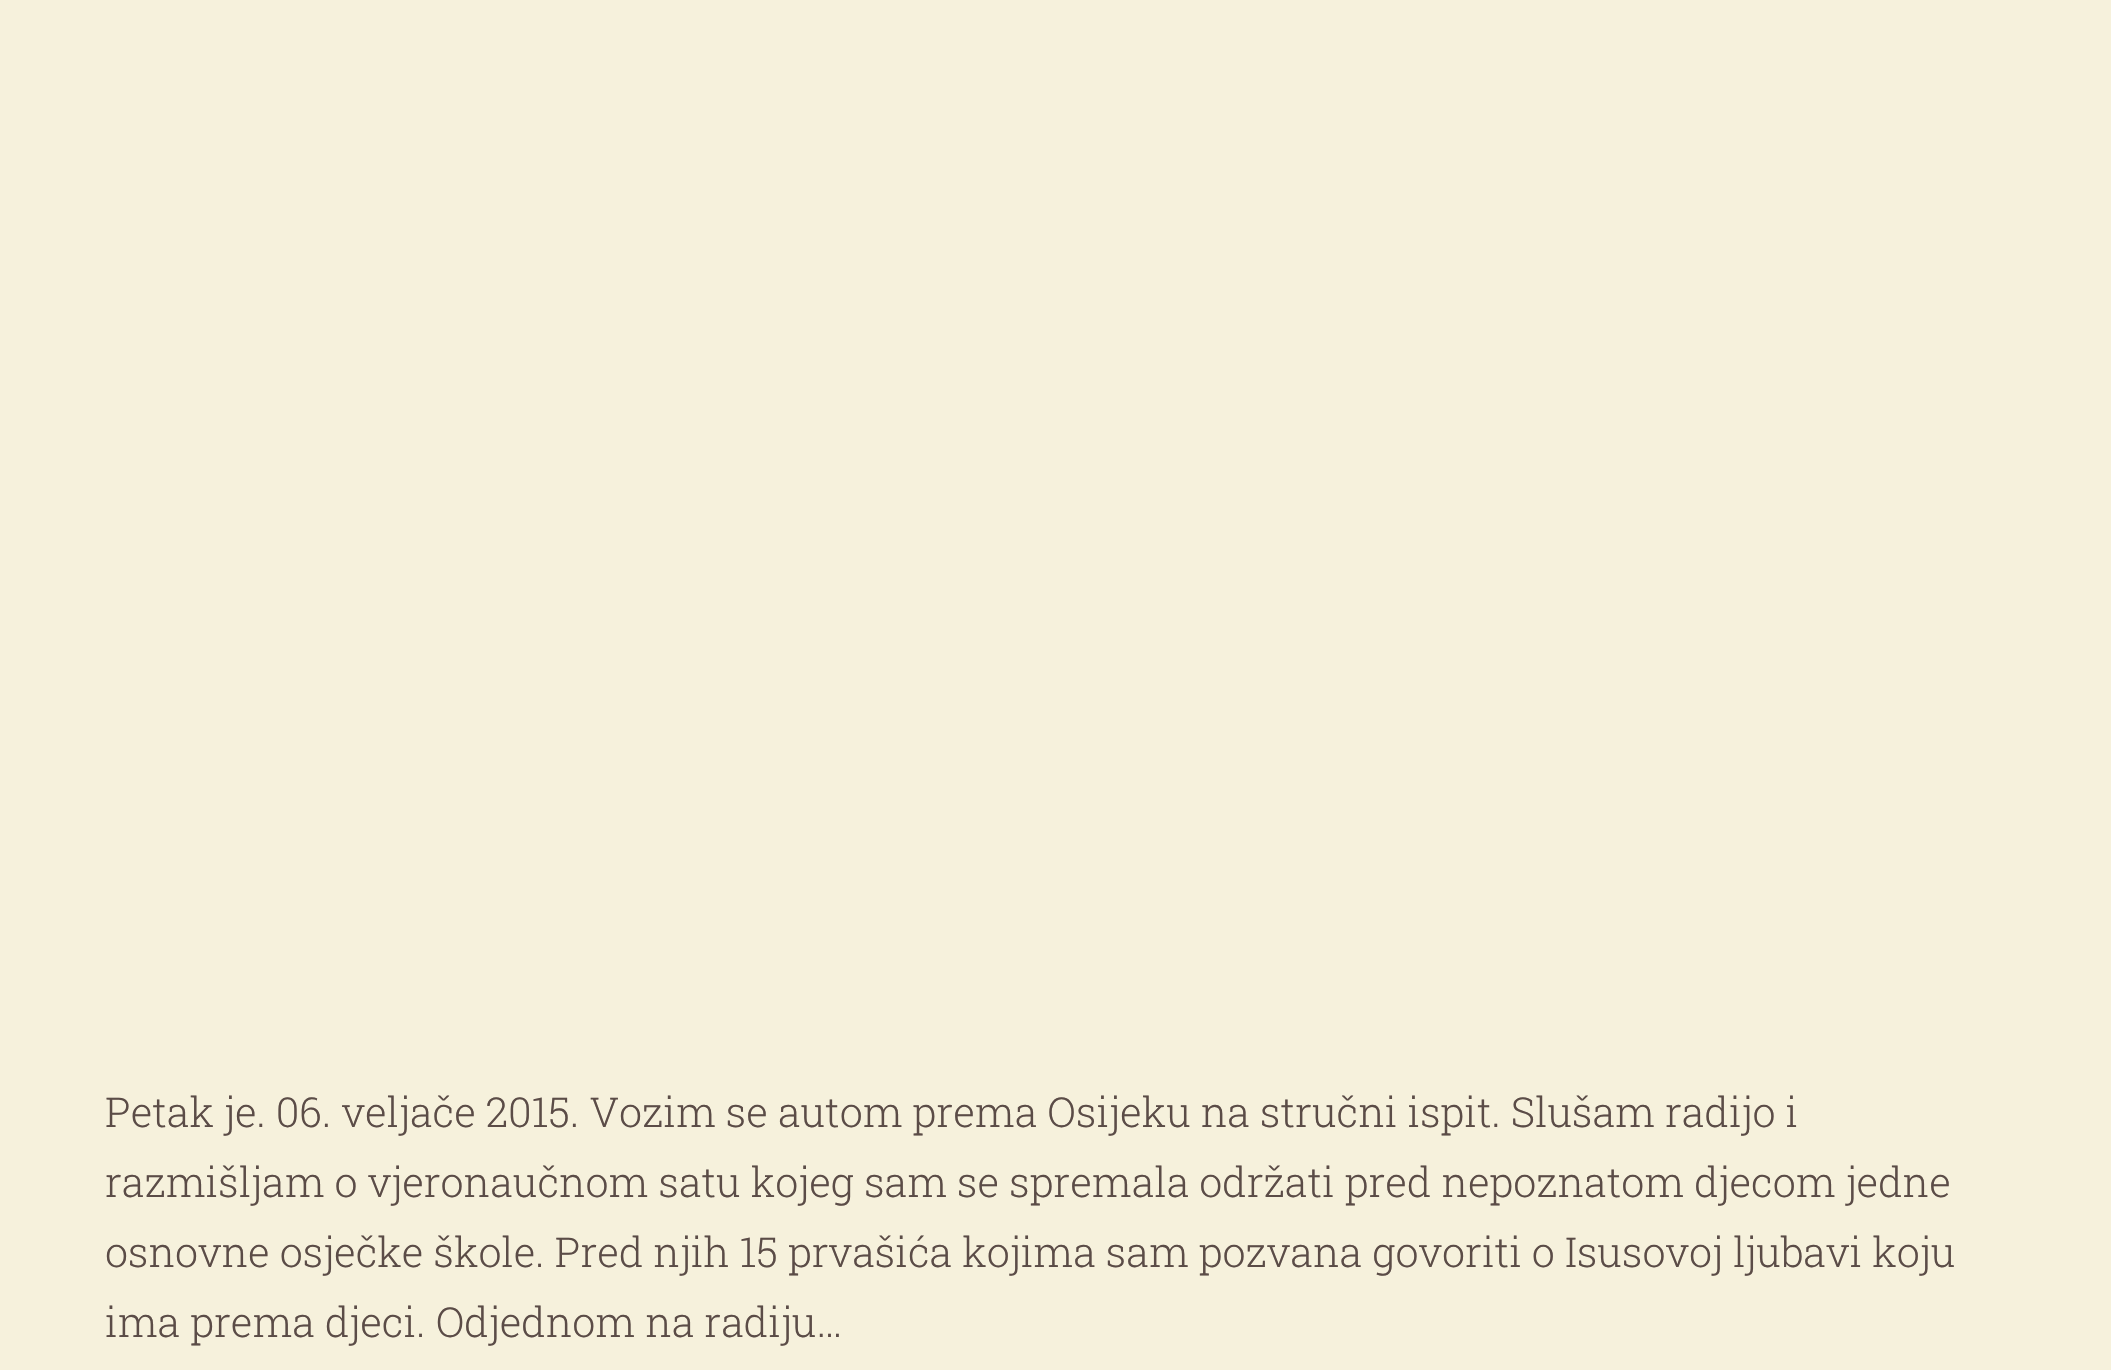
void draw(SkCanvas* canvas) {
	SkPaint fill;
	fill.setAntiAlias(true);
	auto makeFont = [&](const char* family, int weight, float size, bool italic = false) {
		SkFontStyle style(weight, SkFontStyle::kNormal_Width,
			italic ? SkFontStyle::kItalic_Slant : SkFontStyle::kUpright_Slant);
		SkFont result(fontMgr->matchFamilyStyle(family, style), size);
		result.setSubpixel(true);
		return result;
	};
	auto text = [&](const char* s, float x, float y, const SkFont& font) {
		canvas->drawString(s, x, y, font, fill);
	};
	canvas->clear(0xFFF6F1DC);
	auto font1 = makeFont("Roboto Slab", 300, 41.25f);
	fill.setColor(0xFF5B4C47);
	text("Petak je. 06. veljače 2015. Vozim se autom prema Osijeku na stručni ispit. Slušam radijo i", 105, 1127, font1);
	text("razmišljam o vjeronaučnom satu kojeg sam se spremala održati pred nepoznatom djecom jedne", 105, 1197, font1);
	text("osnovne osječke škole. Pred njih 15 prvašića kojima sam pozvana govoriti o Isusovoj ljubavi koju", 105, 1267, font1);
	text("ima prema djeci. Odjednom na radiju…", 105, 1337, font1);
}
